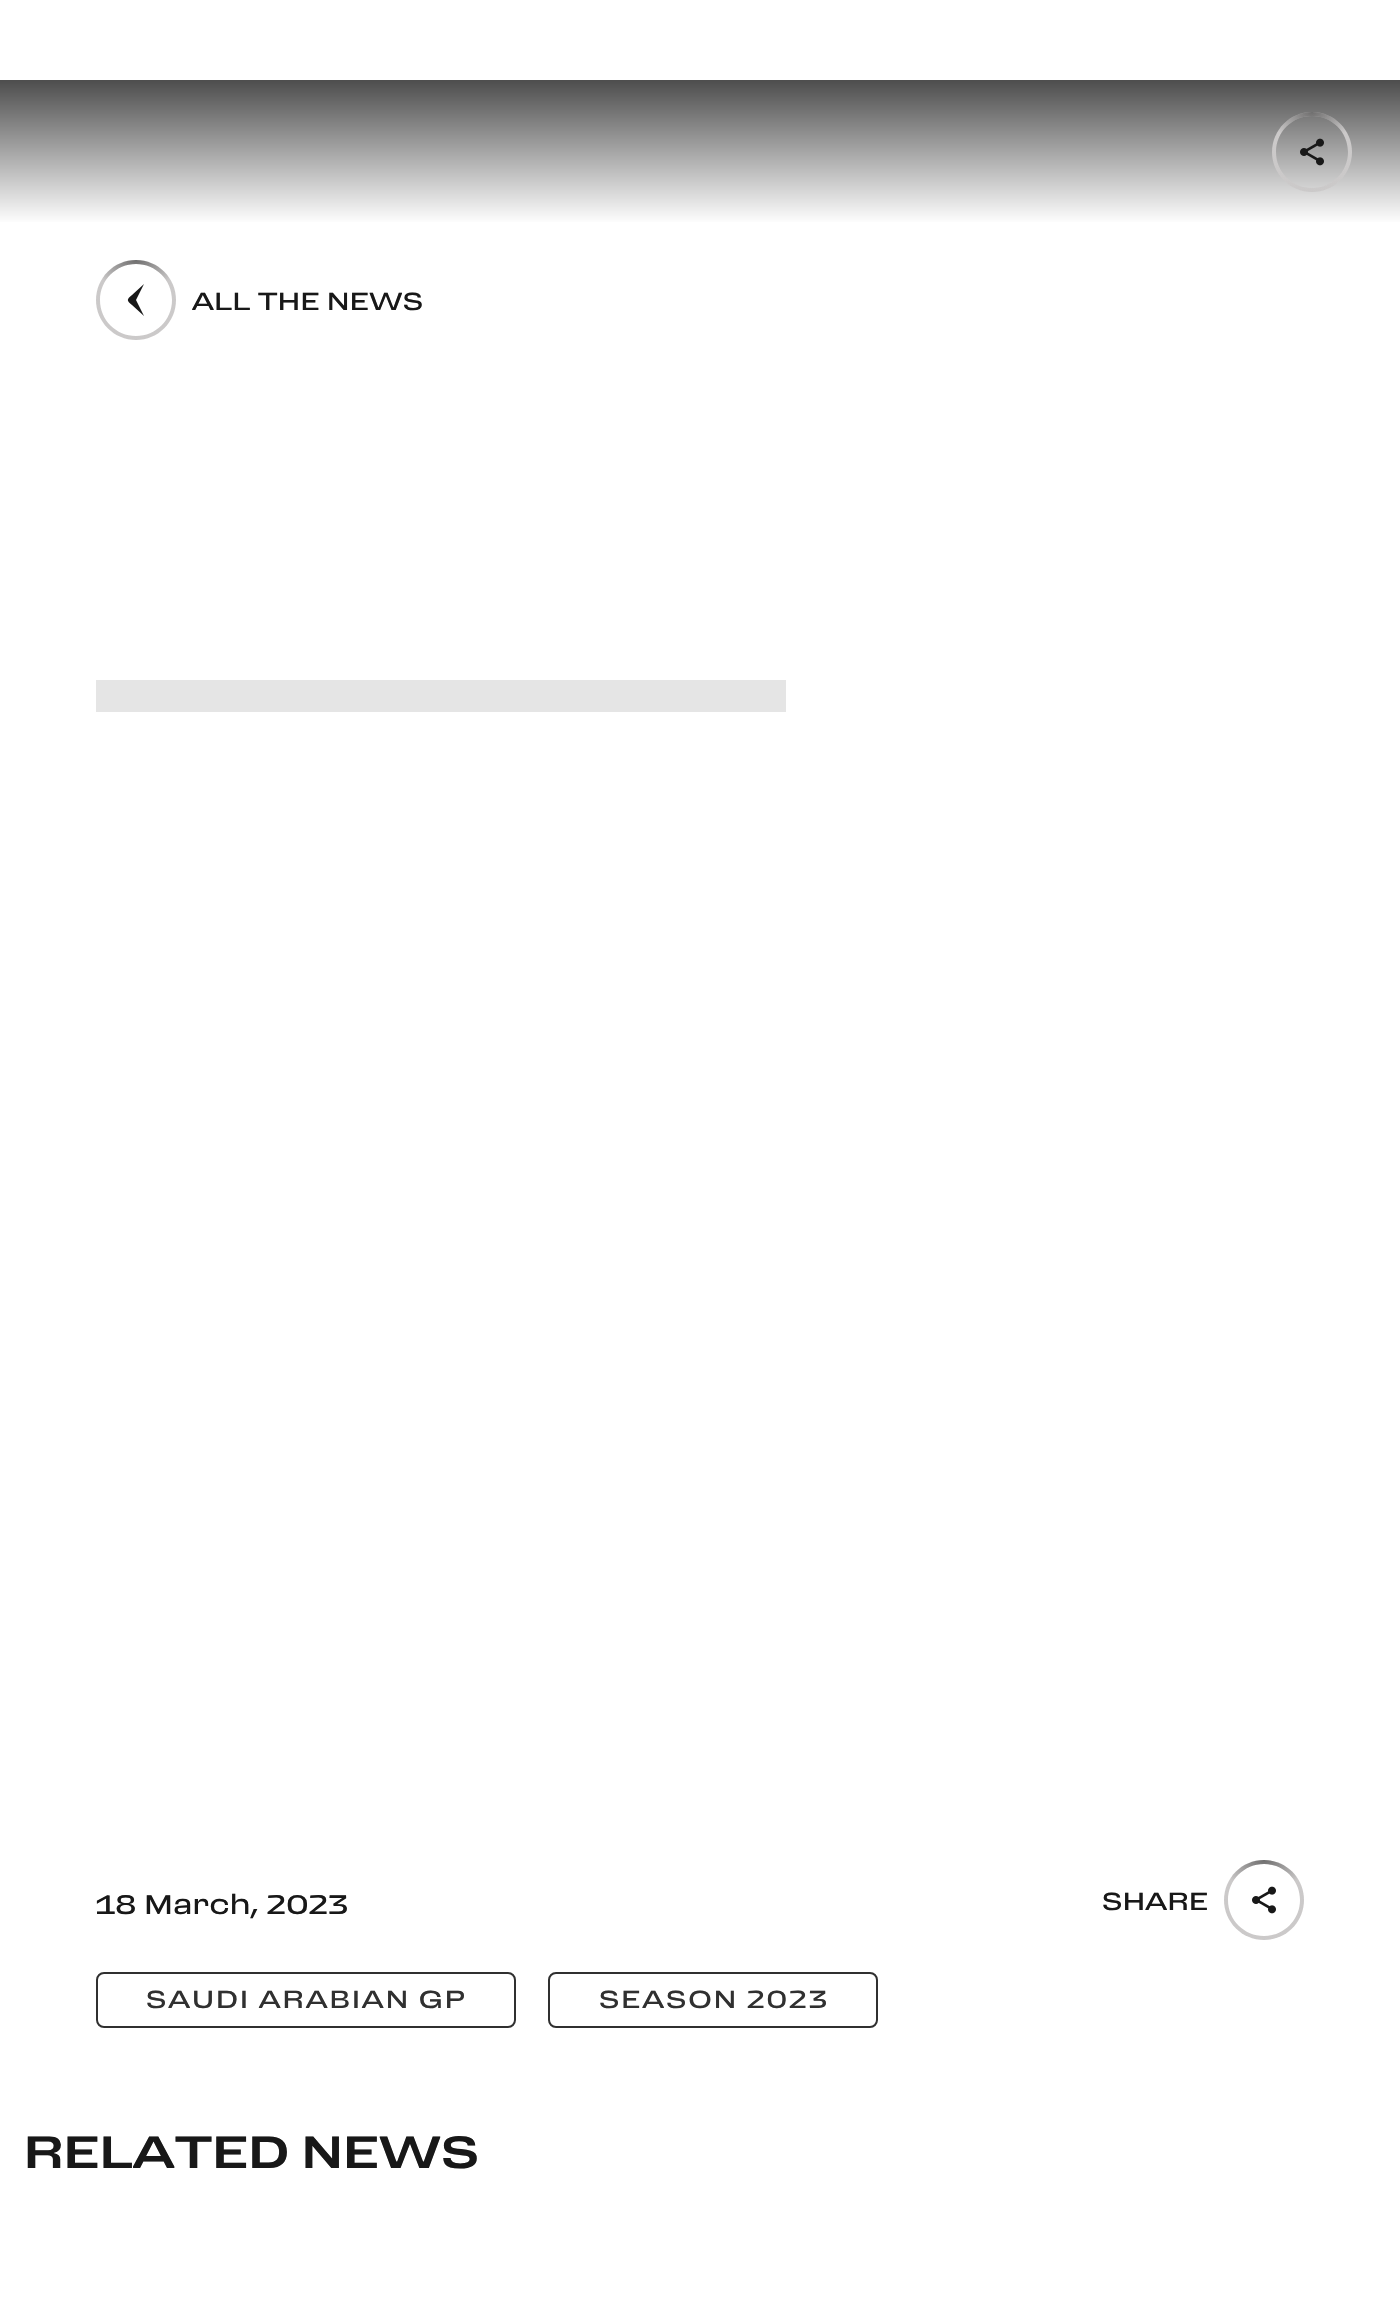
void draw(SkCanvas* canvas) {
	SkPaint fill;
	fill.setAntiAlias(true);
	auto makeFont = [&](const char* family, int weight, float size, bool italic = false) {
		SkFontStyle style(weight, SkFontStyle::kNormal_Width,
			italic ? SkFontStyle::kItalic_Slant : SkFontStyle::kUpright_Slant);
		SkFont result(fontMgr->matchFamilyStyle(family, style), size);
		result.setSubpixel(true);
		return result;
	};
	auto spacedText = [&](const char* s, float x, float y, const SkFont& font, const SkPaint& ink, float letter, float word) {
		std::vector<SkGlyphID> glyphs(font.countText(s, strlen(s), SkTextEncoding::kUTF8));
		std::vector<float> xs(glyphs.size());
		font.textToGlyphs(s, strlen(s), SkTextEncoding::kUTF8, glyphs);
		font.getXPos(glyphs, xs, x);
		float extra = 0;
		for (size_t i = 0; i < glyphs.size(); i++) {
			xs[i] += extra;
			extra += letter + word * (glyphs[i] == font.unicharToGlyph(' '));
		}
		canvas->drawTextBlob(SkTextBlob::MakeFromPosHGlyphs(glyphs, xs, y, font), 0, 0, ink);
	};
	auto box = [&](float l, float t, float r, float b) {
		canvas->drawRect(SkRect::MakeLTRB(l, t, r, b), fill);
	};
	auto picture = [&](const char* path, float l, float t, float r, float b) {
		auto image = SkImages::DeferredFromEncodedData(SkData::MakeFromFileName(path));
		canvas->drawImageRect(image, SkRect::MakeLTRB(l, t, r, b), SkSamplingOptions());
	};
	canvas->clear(0xFFFFFFFF);
	{
		const SkColor colors[] = {0xFFFFFFFF, 0xFFA6A6A6, 0xFF4D4D4D};
		const float stops[] = {0, 0.5f, 1};
		const SkPoint ends[] = {{700, 224}, {700, 80}};
		fill.setShader(SkGradientShader::MakeLinear(ends, colors, stops, 3, SkTileMode::kClamp));
		fill.setAlpha(255);
	}
	box(0, 80, 1400, 222);
	picture("image1.png", 1300, 138, 1324, 166);
	picture("image0.png", 1272, 112, 1352, 192);
	fill.setShader(nullptr);
	fill.setColor(0xFF181818);
	canvas->drawPath(SkPathBuilder(SkPathFillType::kEvenOdd).moveTo(144, 284).lineTo(132, 295).cubicTo(126.5f, 299.5f, 126.5f, 300.5f, 132, 305).lineTo(144, 316).lineTo(136, 300).close().detach(), fill);
	picture("image2.png", 96, 260, 176, 340);
	fill.setColor(0xFFE5E5E5);
	box(96, 680, 786, 712);
	picture("image4.png", 1252, 1886, 1276, 1914);
	picture("image3.png", 1224, 1860, 1304, 1940);
	fill.setStyle(SkPaint::kStroke_Style);
	fill.setStrokeWidth(2);
	fill.setColor(0xFF303030);
	canvas->drawRoundRect(SkRect::MakeLTRB(97, 1973, 515, 2027), 7, 7, fill);
	canvas->drawRoundRect(SkRect::MakeLTRB(549, 1973, 877, 2027), 7, 7, fill);
	auto font1 = makeFont("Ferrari", 400, 24);
	fill.setStyle(SkPaint::kFill_Style);
	fill.setColor(0xFF181818);
	spacedText("ALL THE NEWS", 192, 310, font1, fill, 0.4f, 0);
	auto font2 = makeFont("Ferrari", 400, 26);
	spacedText("18 March, 2023", 96, 1914, font2, fill, 0.4f, 0);
	spacedText("SHARE", 1102, 1910, font1, fill, 0.4f, 0);
	fill.setColor(0xFF303030);
	spacedText("SAUDI ARABIAN GP", 146, 2008, font1, fill, 2, 0);
	spacedText("SEASON 2023", 599, 2008, font1, fill, 2, 0);
	auto font3 = makeFont("Ferrari", 500, 44);
	fill.setColor(0xFF181818);
	spacedText("RELATED NEWS", 24, 2168, font3, fill, 0.4f, 0);
}
